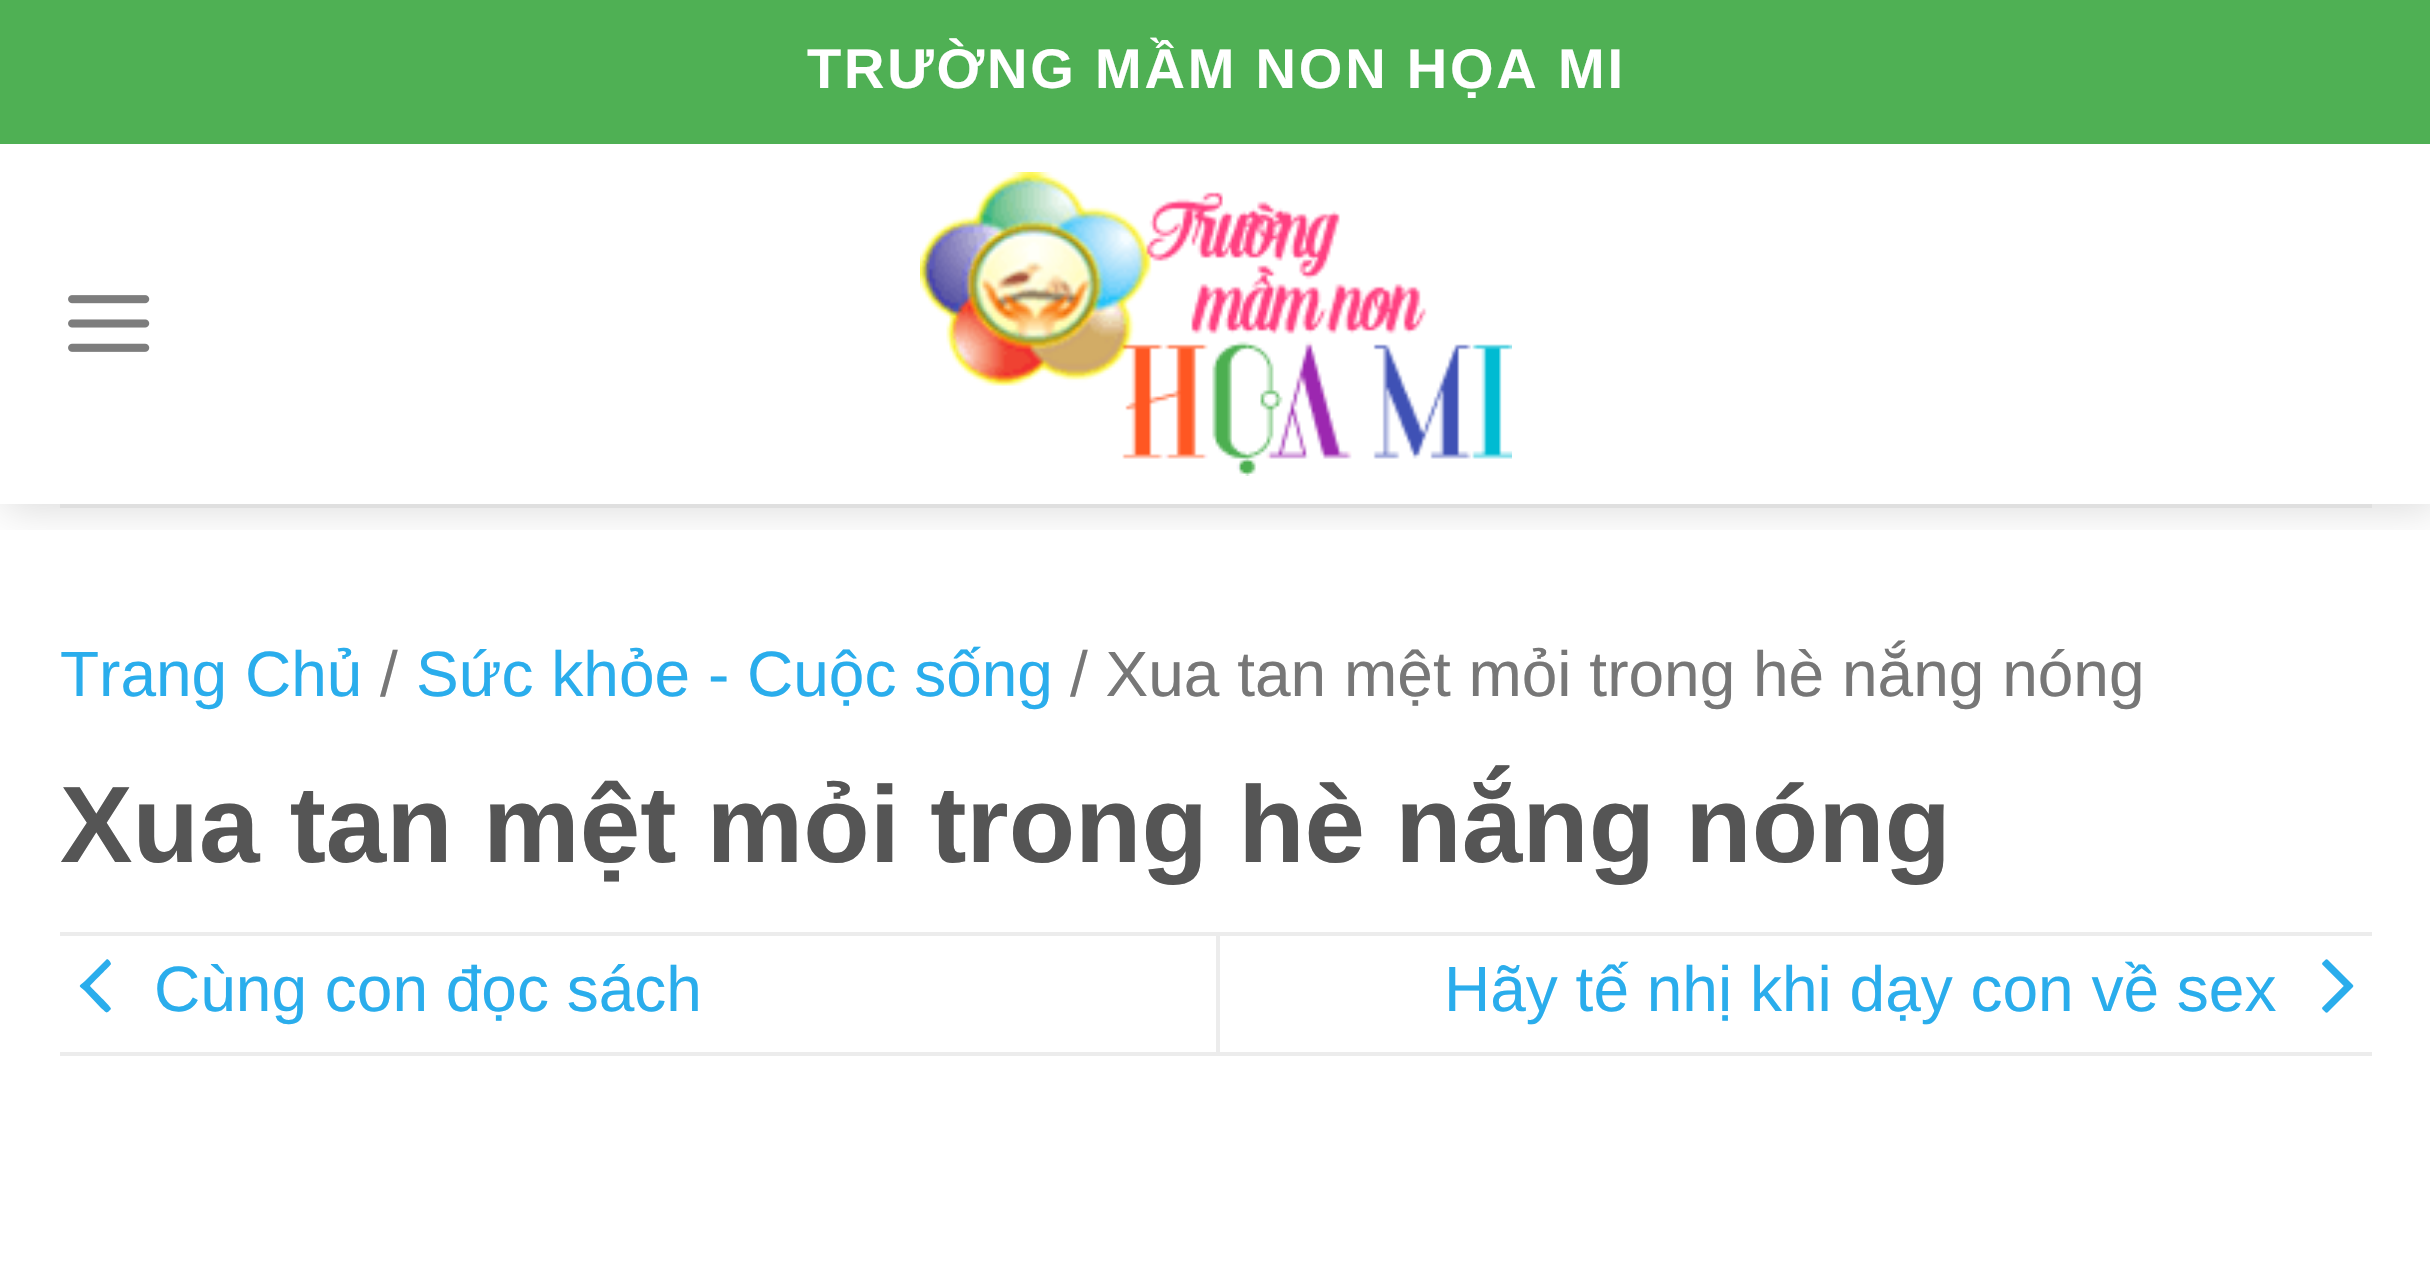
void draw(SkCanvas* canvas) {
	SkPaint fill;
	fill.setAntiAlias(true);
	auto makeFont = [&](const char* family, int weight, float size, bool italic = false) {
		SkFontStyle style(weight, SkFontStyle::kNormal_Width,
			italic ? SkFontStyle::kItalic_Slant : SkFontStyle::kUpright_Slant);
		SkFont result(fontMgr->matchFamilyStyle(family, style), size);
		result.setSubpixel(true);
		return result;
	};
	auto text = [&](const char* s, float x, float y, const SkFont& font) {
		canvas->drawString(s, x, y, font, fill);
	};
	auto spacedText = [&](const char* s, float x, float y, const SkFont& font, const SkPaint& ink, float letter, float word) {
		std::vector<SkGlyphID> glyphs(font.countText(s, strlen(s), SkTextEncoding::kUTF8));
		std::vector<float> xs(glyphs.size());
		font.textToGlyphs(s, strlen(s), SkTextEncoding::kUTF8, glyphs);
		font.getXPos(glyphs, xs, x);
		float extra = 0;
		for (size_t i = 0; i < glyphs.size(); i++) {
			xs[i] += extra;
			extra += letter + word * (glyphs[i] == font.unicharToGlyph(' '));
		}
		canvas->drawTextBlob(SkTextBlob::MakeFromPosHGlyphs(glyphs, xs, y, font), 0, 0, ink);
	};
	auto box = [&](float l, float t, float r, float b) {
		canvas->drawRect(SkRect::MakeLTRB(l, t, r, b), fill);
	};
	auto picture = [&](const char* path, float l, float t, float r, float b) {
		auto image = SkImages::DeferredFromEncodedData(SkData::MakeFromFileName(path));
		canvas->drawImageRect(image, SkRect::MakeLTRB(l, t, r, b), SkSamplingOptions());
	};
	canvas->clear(0xFFFFFFFF);
	canvas->save();
	canvas->clipRect(SkRect::MakeLTRB(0, 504, 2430, 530));
	fill.setColor(0x26000000);
	fill.setMaskFilter(SkMaskFilter::MakeBlur(kNormal_SkBlurStyle, 20));
	canvas->drawRect(SkRect::MakeLTRB(4, 4, 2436, 508), fill);
	fill.setMaskFilter(nullptr);
	canvas->restore();
	fill.setColor(0xFF4FB054);
	box(0, 0, 2430, 144);
	picture("image0.png", 68, 295, 150, 352);
	picture("image1.png", 920, 172, 1512, 476);
	fill.setColor(0xFFDFDFDF);
	box(60, 504, 2372, 508);
	fill.setColor(0xFFECECEC);
	box(60, 932, 2372, 936);
	box(60, 1052, 2372, 1056);
	fill.setColor(0xFF2AADEC);
	canvas->drawPath(SkPathBuilder().moveTo(111, 964).cubicTo(111, 965, 92, 983, 90, 986).cubicTo(92, 989, 112, 1007, 111, 1009).lineTo(109, 1011).cubicTo(106, 1014, 106, 1012, 101, 1008).lineTo(85, 991).cubicTo(78, 985, 78, 987, 85, 981).lineTo(107, 959).cubicTo(108, 959, 111, 962, 111, 964).close().detach(), fill);
	fill.setColor(0xFFECECEC);
	box(1216, 936, 1220, 1052);
	picture("image2.png", 2322, 959, 2354, 1013);
	auto font1 = makeFont("Liberation Sans", 700, 56);
	fill.setColor(0xFFFFFFFF);
	spacedText("TRƯỜNG MẦM NON HỌA MI", 807, 88, font1, fill, 2.8f, 0);
	auto font2 = makeFont("Liberation Sans", 400, 64);
	fill.setColor(0xFF2AADEC);
	text("Trang Chủ", 60, 696, font2);
	fill.setColor(0xFF777777);
	text("/", 380, 696, font2);
	fill.setColor(0xFF2AADEC);
	text("Sức khỏe - Cuộc sống", 416, 696, font2);
	fill.setColor(0xFF777777);
	text("/ Xua tan mệt mỏi trong hè nắng nóng", 1070, 696, font2);
	auto font3 = makeFont("Liberation Sans", 700, 108.75f);
	fill.setColor(0xFF555555);
	text("Xua tan mệt mỏi trong hè nắng nóng", 60, 862, font3);
	fill.setColor(0xFF2AADEC);
	text("Cùng con đọc sách", 154, 1011, font2);
	text("Hãy tế nhị khi dạy con về sex", 1444, 1011, font2);
}
